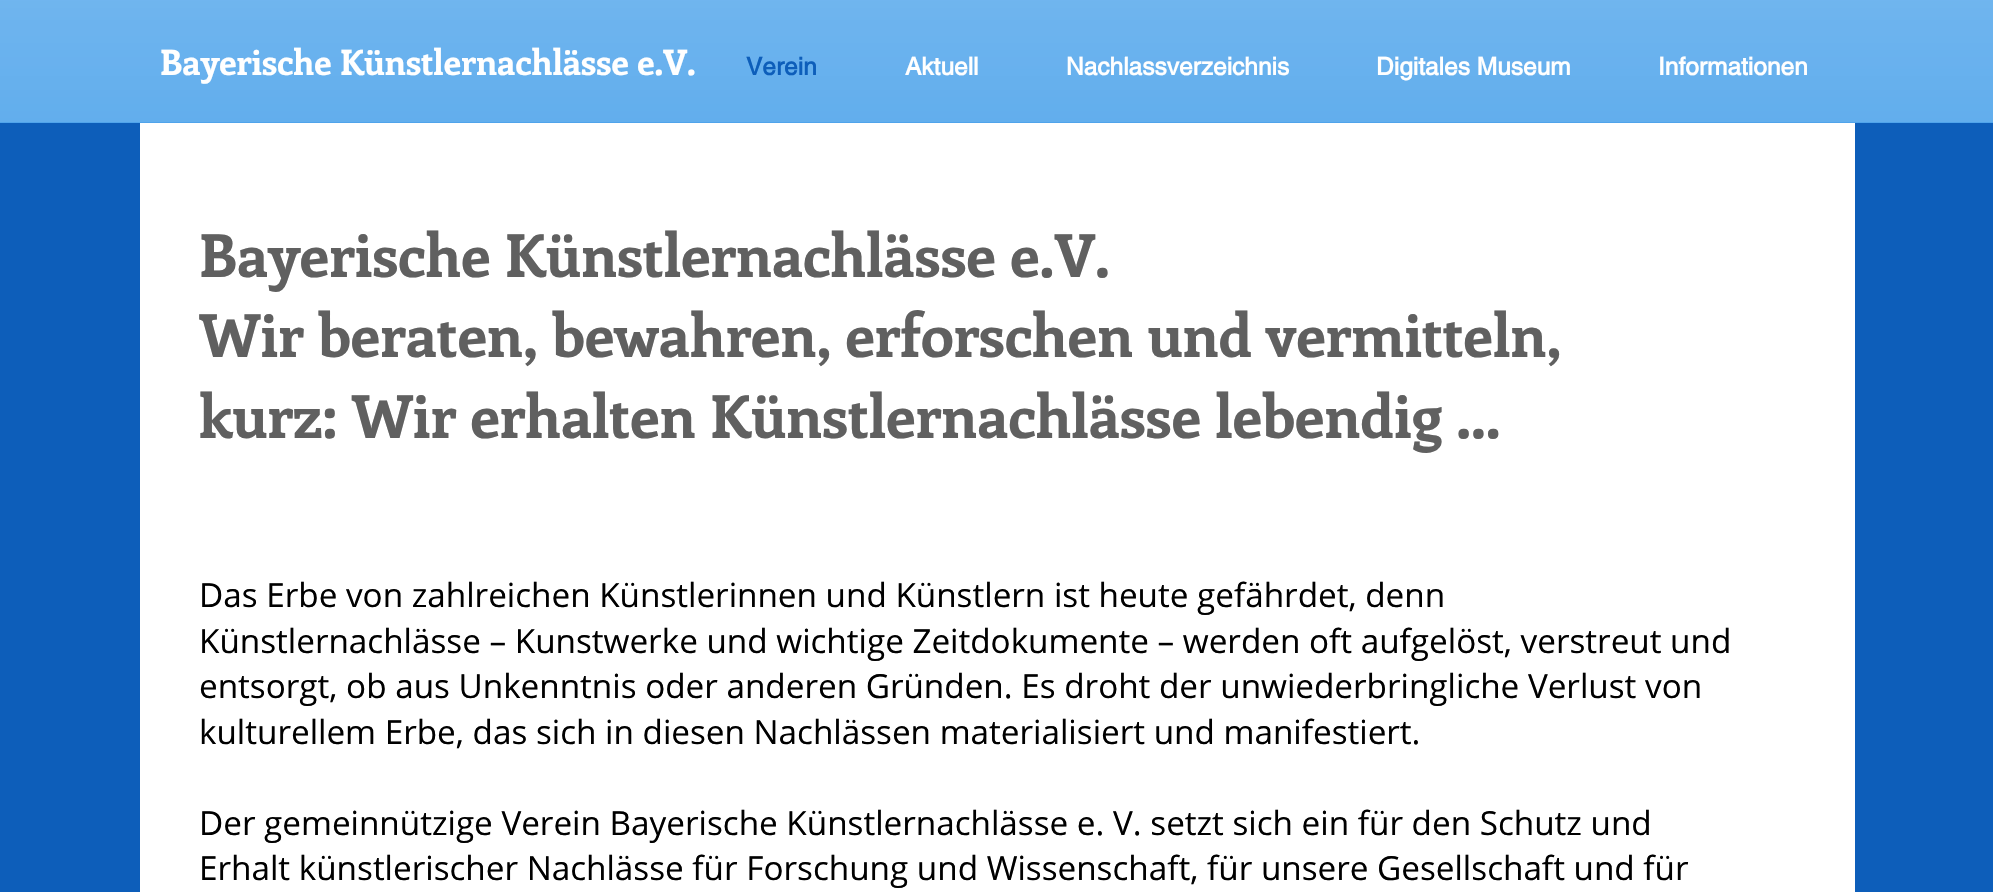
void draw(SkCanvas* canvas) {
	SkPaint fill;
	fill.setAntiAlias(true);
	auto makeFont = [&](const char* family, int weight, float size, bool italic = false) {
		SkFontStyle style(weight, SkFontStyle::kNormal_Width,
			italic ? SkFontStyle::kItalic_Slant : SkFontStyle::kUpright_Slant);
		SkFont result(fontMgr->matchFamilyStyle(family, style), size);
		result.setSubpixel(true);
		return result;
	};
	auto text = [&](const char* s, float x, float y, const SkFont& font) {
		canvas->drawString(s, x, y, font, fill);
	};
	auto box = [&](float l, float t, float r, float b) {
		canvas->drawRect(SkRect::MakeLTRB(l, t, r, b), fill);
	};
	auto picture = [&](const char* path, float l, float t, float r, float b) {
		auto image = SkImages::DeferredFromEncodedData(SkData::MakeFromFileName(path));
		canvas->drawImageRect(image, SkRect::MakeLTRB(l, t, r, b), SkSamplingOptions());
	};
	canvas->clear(0xFF0D5EBA);
	fill.setColor(0xFF3D9BE9);
	box(0, 0, 1993, 123);
	picture("image0.png", 0, 0, 1993, 123);
	fill.setColor(0xFFFFFFFF);
	box(140, 123, 1855, 892);
	auto font1 = makeFont("Enriqueta", 700, 35);
	text("Bayerische Künstlernachlässe e.V.", 160, 75, font1);
	auto font2 = makeFont("helvetica", 700, 24.5f);
	fill.setColor(0xFF0D5EBA);
	text("Verein", 746, 75, font2);
	fill.setColor(0xFFFFFFFF);
	text("Aktuell", 905, 75, font2);
	text("Nachlassverzeichnis", 1066, 75, font2);
	text("Digitales Museum", 1376, 75, font2);
	text("Informationen", 1658, 75, font2);
	auto font3 = makeFont("Enriqueta", 700, 59.5f);
	fill.setColor(0xFF606060);
	text("Bayerische Künstlernachlässe e.V.", 199, 277, font3);
	text("Wir beraten, bewahren, erforschen und vermitteln,", 199, 357, font3);
	text("kurz: Wir erhalten Künstlernachlässe lebendig ...", 199, 438, font3);
	auto font4 = makeFont("Open Sans", 400, 33.25f);
	fill.setColor(0xFF000000);
	text("Das Erbe von zahlreichen Künstlerinnen und Künstlern ist heute gefährdet, denn", 199, 607, font4);
	text("Künstlernachlässe – Kunstwerke und wichtige Zeitdokumente – werden oft aufgelöst, verstreut und", 199, 653, font4);
	text("entsorgt, ob aus Unkenntnis oder anderen Gründen. Es droht der unwiederbringliche Verlust von", 199, 698, font4);
	text("kulturellem Erbe, das sich in diesen Nachlässen materialisiert und manifestiert.", 199, 744, font4);
	text("Der gemeinnützige Verein Bayerische Künstlernachlässe e. V. setzt sich ein für den Schutz und", 199, 835, font4);
	text("Erhalt künstlerischer Nachlässe für Forschung und Wissenschaft, für unsere Gesellschaft und für", 199, 880, font4);
}
